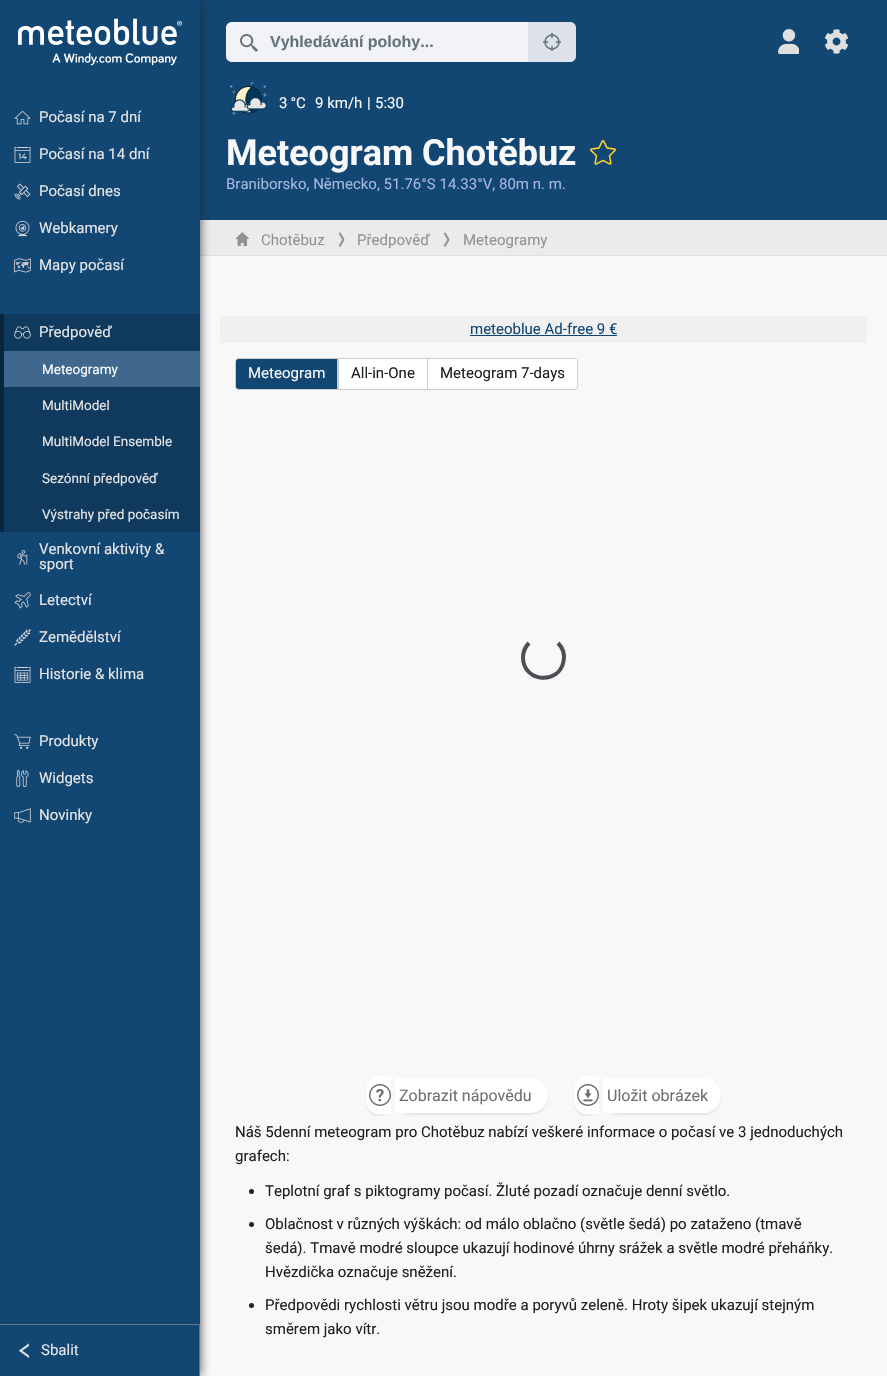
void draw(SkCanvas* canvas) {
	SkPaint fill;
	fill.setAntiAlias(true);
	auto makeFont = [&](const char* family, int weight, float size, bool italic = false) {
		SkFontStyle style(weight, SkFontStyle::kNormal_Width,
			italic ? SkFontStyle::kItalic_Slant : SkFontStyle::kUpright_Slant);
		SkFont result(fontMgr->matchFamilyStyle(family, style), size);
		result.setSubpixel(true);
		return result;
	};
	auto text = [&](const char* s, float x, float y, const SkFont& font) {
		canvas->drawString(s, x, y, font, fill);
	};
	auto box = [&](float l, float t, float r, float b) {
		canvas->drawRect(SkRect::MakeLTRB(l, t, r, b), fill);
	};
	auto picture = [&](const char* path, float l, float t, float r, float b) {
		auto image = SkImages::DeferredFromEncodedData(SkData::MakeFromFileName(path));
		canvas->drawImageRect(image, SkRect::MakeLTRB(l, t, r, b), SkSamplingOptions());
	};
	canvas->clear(0xFFF8F8F8);
	fill.setColor(0xFF124673);
	box(200, 0, 887, 220);
	fill.setColor(0xFFEBEBEB);
	box(200, 220, 887, 255);
	fill.setColor(0xFFDFDFDF);
	box(200, 255, 887, 256);
	fill.setColor(0xCC23232D);
	fill.setMaskFilter(SkMaskFilter::MakeBlur(kNormal_SkBlurStyle, 5));
	canvas->drawRect(SkRect::MakeLTRB(0, 0, 200, 1376), fill);
	fill.setMaskFilter(nullptr);
	fill.setColor(0xFF124673);
	box(0, 0, 200, 1376);
	picture("image0.png", 18, 18, 182, 66);
	picture("image1.png", 14, 110, 31, 125);
	picture("image2.png", 14, 147, 31, 163);
	picture("image3.png", 14, 183, 31, 200);
	picture("image4.png", 15, 220, 30, 237);
	picture("image5.png", 14, 258, 31, 273);
	fill.setColor(0xFF0F395D);
	box(4, 314, 200, 351);
	picture("image6.png", 14, 326, 31, 339);
	box(4, 387, 200, 532);
	fill.setColor(0xFF0A263E);
	box(0, 314, 4, 532);
	fill.setColor(0xFF40678E);
	box(4, 351, 200, 387);
	picture("image7.png", 17, 550, 28, 565);
	picture("image8.png", 14, 592, 31, 609);
	picture("image9.png", 14, 629, 31, 646);
	picture("image10.png", 14, 666, 31, 683);
	picture("image11.png", 14, 734, 31, 749);
	picture("image12.png", 16, 770, 29, 787);
	picture("image13.png", 14, 808, 31, 823);
	fill.setColor(0xFF6B787F);
	box(199, 1324, 200, 1376);
	box(0, 1324, 199, 1325);
	picture("image14.png", 18, 1343, 29, 1358);
	fill.setColor(0xFFF1F3F6);
	canvas->drawPath(SkPathBuilder().moveTo(232, 22).lineTo(528, 22).lineTo(528, 62).lineTo(232, 62).cubicTo(228.5f, 62, 226, 59.5f, 226, 56).lineTo(226, 28).cubicTo(226, 24.5f, 228.5f, 22, 232, 22).close().detach(), fill);
	picture("image15.png", 240, 34, 258, 52);
	fill.setColor(0xFFDDE2EA);
	canvas->drawPath(SkPathBuilder().moveTo(528, 22).lineTo(570, 22).cubicTo(573.5f, 22, 576, 24.5f, 576, 28).lineTo(576, 56).cubicTo(576, 59.5f, 573.5f, 62, 570, 62).lineTo(528, 62).close().detach(), fill);
	picture("image16.png", 543, 33, 561, 51);
	picture("image17.png", 778, 29, 799, 54);
	picture("image18.png", 825, 29, 848, 54);
	picture("image19.png", 229, 81, 267, 116);
	picture("image20.png", 590, 140, 616, 165);
	picture("image21.png", 235, 232, 250, 247);
	picture("image22.png", 338, 232, 345, 247);
	picture("image22.png", 443, 232, 450, 247);
	fill.setColor(0xFFF0F0F0);
	box(220, 316, 867, 343);
	fill.setColor(0xFF124673);
	box(470, 335, 617, 336);
	canvas->drawPath(SkPathBuilder().moveTo(239, 358.5f).lineTo(337.5f, 358.5f).lineTo(337.5f, 389.5f).lineTo(239, 389.5f).cubicTo(237, 389.5f, 235.5f, 388, 235.5f, 386).lineTo(235.5f, 362).cubicTo(235.5f, 360, 237, 358.5f, 239, 358.5f).close().detach(), fill);
	fill.setStyle(SkPaint::kStroke_Style);
	fill.setStrokeWidth(1);
	fill.setColor(0xFFCCCCCC);
	canvas->drawPath(SkPathBuilder().moveTo(239, 358.5f).lineTo(337.5f, 358.5f).lineTo(337.5f, 389.5f).lineTo(239, 389.5f).cubicTo(237, 389.5f, 235.5f, 388, 235.5f, 386).lineTo(235.5f, 362).cubicTo(235.5f, 360, 237, 358.5f, 239, 358.5f).close().detach(), fill);
	fill.setStyle(SkPaint::kFill_Style);
	fill.setColor(0xFFFFFFFF);
	canvas->drawRect(SkRect::MakeLTRB(338.5f, 358.5f, 427.5f, 389.5f), fill);
	fill.setStyle(SkPaint::kStroke_Style);
	fill.setColor(0xFFCCCCCC);
	canvas->drawRect(SkRect::MakeLTRB(338.5f, 358.5f, 427.5f, 389.5f), fill);
	fill.setStyle(SkPaint::kFill_Style);
	fill.setColor(0xFFFFFFFF);
	canvas->drawPath(SkPathBuilder().moveTo(428, 358).lineTo(574, 358).cubicTo(576, 358, 578, 360, 578, 362).lineTo(578, 386).cubicTo(578, 388, 576, 390, 574, 390).lineTo(428, 390).close().detach(), fill);
	fill.setColor(0xFFCCCCCC);
	canvas->drawPath(SkPathBuilder(SkPathFillType::kEvenOdd).moveTo(428, 358).lineTo(574, 358).cubicTo(576, 358, 578, 360, 578, 362).lineTo(578, 386).cubicTo(578, 388, 576, 390, 574, 390).lineTo(428, 390).close().moveTo(428, 359).lineTo(574, 359).cubicTo(576, 359, 577, 360, 577, 362).lineTo(577, 386).cubicTo(577, 388, 576, 389, 574, 389).lineTo(428, 389).close().detach(), fill);
	fill.setStyle(SkPaint::kStroke_Style);
	fill.setStrokeWidth(4);
	fill.setColor(0xFF4C4F56);
	canvas->drawPath(SkPathBuilder().moveTo(558, 643).cubicTo(563, 648, 565, 655, 563.5f, 661.5f).cubicTo(559, 685.5f, 523, 682, 523, 657.5f).cubicTo(523, 652, 525, 647, 529, 643).detach(), fill);
	fill.setStyle(SkPaint::kFill_Style);
	fill.setColor(0xFFE6E6E6);
	fill.setMaskFilter(SkMaskFilter::MakeBlur(kNormal_SkBlurStyle, 1));
	canvas->drawRoundRect(SkRect::MakeLTRB(366, 1078, 391, 1116), 12.5f, 12.5f, fill);
	fill.setMaskFilter(nullptr);
	fill.setColor(0xFFFFFFFF);
	canvas->drawPath(SkPathBuilder().moveTo(378.5f, 1076).lineTo(391, 1076).lineTo(391, 1114).lineTo(378.5f, 1114).cubicTo(371.5f, 1114, 366, 1108.5f, 366, 1101.5f).lineTo(366, 1088.5f).cubicTo(366, 1081.5f, 371.5f, 1076, 378.5f, 1076).close().detach(), fill);
	fill.setColor(0xFFE6E6E6);
	fill.setMaskFilter(SkMaskFilter::MakeBlur(kNormal_SkBlurStyle, 1));
	canvas->drawRoundRect(SkRect::MakeLTRB(395, 1080, 548, 1115), 17.5f, 17.5f, fill);
	fill.setMaskFilter(nullptr);
	fill.setColor(0xFFFFFFFF);
	canvas->drawPath(SkPathBuilder().moveTo(395, 1078).lineTo(530.5f, 1078).cubicTo(540, 1078, 548, 1086, 548, 1095.5f).cubicTo(548, 1105, 540, 1113, 530.5f, 1113).lineTo(395, 1113).close().detach(), fill);
	picture("image23.png", 369, 1084, 391, 1106);
	fill.setColor(0xFFE6E6E6);
	fill.setMaskFilter(SkMaskFilter::MakeBlur(kNormal_SkBlurStyle, 1));
	canvas->drawRoundRect(SkRect::MakeLTRB(574, 1078, 599, 1116), 12.5f, 12.5f, fill);
	fill.setMaskFilter(nullptr);
	fill.setColor(0xFFFFFFFF);
	canvas->drawPath(SkPathBuilder().moveTo(586.5f, 1076).lineTo(599, 1076).lineTo(599, 1114).lineTo(586.5f, 1114).cubicTo(579.5f, 1114, 574, 1108.5f, 574, 1101.5f).lineTo(574, 1088.5f).cubicTo(574, 1081.5f, 579.5f, 1076, 586.5f, 1076).close().detach(), fill);
	fill.setColor(0xFFE6E6E6);
	fill.setMaskFilter(SkMaskFilter::MakeBlur(kNormal_SkBlurStyle, 1));
	canvas->drawRoundRect(SkRect::MakeLTRB(603, 1080, 721, 1115), 17.5f, 17.5f, fill);
	fill.setMaskFilter(nullptr);
	fill.setColor(0xFFFFFFFF);
	canvas->drawPath(SkPathBuilder().moveTo(603, 1078).lineTo(703.5f, 1078).cubicTo(713, 1078, 721, 1086, 721, 1095.5f).cubicTo(721, 1105, 713, 1113, 703.5f, 1113).lineTo(603, 1113).close().detach(), fill);
	picture("image24.png", 577, 1084, 599, 1106);
	fill.setColor(0xFF231F20);
	canvas->drawCircle(251.5f, 1191.5f, 2.5f, fill);
	canvas->drawCircle(251.5f, 1224.5f, 2.5f, fill);
	canvas->drawCircle(251.5f, 1305.5f, 2.5f, fill);
	auto font1 = makeFont("Roboto", 400, 15);
	fill.setColor(0xFFE5E5E5);
	text("Počasí na 7 dní", 39, 122, font1);
	text("Počasí na 14 dní", 39, 159, font1);
	text("Počasí dnes", 39, 196, font1);
	text("Webkamery", 39, 233, font1);
	text("Mapy počasí", 39, 270, font1);
	text("Předpověď", 39, 337, font1);
	auto font2 = makeFont("Roboto", 400, 13.5f);
	fill.setColor(0xFFFFFFFF);
	text("Meteogramy", 42, 374, font2);
	fill.setColor(0xFFE5E5E5);
	text("MultiModel", 42, 410, font2);
	text("MultiModel Ensemble", 42, 446, font2);
	text("Sezónní předpověď", 42, 483, font2);
	text("Výstrahy před počasím", 42, 519, font2);
	text("Venkovní aktivity &", 39, 554, font1);
	text("sport", 39, 569, font1);
	text("Letectví", 39, 605, font1);
	text("Zemědělství", 39, 642, font1);
	text("Historie & klima", 39, 679, font1);
	text("Produkty", 39, 746, font1);
	text("Widgets", 39, 783, font1);
	text("Novinky", 39, 820, font1);
	text("Sbalit", 41, 1355, font1);
	auto font3 = makeFont("Liberation Sans", 700, 16);
	fill.setColor(0xFF65727C);
	text("Vyhledávání polohy...", 270, 47, font3);
	fill.setColor(0xFFF8F8F8);
	text("3 °C", 279, 108, font1);
	text("9 km/h", 315, 108, font1);
	text("|", 367, 108, font1);
	text("5:30", 375, 108, font1);
	auto font4 = makeFont("Roboto", 700, 36);
	text("Meteogram Chotěbuz", 226, 165, font4);
	fill.setColor(0xFFA8B7DD);
	text("Braniborsko, Německo, 51.76°S 14.33°V, 80m n. m.", 226, 189, font1);
	fill.setColor(0xFF929292);
	text("Chotěbuz", 261, 245, font1);
	text("Předpověď", 357, 245, font1);
	text("Meteogramy", 463, 245, font1);
	fill.setColor(0xFF124673);
	text("meteoblue Ad-free 9 €", 470, 334, font1);
	fill.setColor(0xFFF8F8F8);
	text("Meteogram", 248, 378, font1);
	fill.setColor(0xFF231F20);
	text("All-in-One", 351, 378, font1);
	text("Meteogram 7-days", 440, 378, font1);
	auto font5 = makeFont("Roboto", 400, 16);
	fill.setColor(0xFF6A7075);
	text("Zobrazit nápovědu", 399, 1101, font5);
	text("Uložit obrázek", 607, 1101, font5);
	fill.setColor(0xFF231F20);
	text("Náš 5denní meteogram pro Chotěbuz nabízí veškeré informace o počasí ve 3 jednoduchých", 235, 1137, font1);
	text("grafech:", 235, 1161, font1);
	text("Teplotní graf s piktogramy počasí. Žluté pozadí označuje denní světlo.", 265, 1196, font1);
	text("Oblačnost v různých výškách: od málo oblačno (světle šedá) po zataženo (tmavě", 265, 1229, font1);
	text("šedá). Tmavě modré sloupce ukazují hodinové úhrny srážek a světle modré přeháňky.", 265, 1253, font1);
	text("Hvězdička označuje sněžení.", 265, 1277, font1);
	text("Předpovědi rychlosti větru jsou modře a poryvů zeleně. Hroty šipek ukazují stejným", 265, 1310, font1);
	text("směrem jako vítr.", 265, 1334, font1);
}
